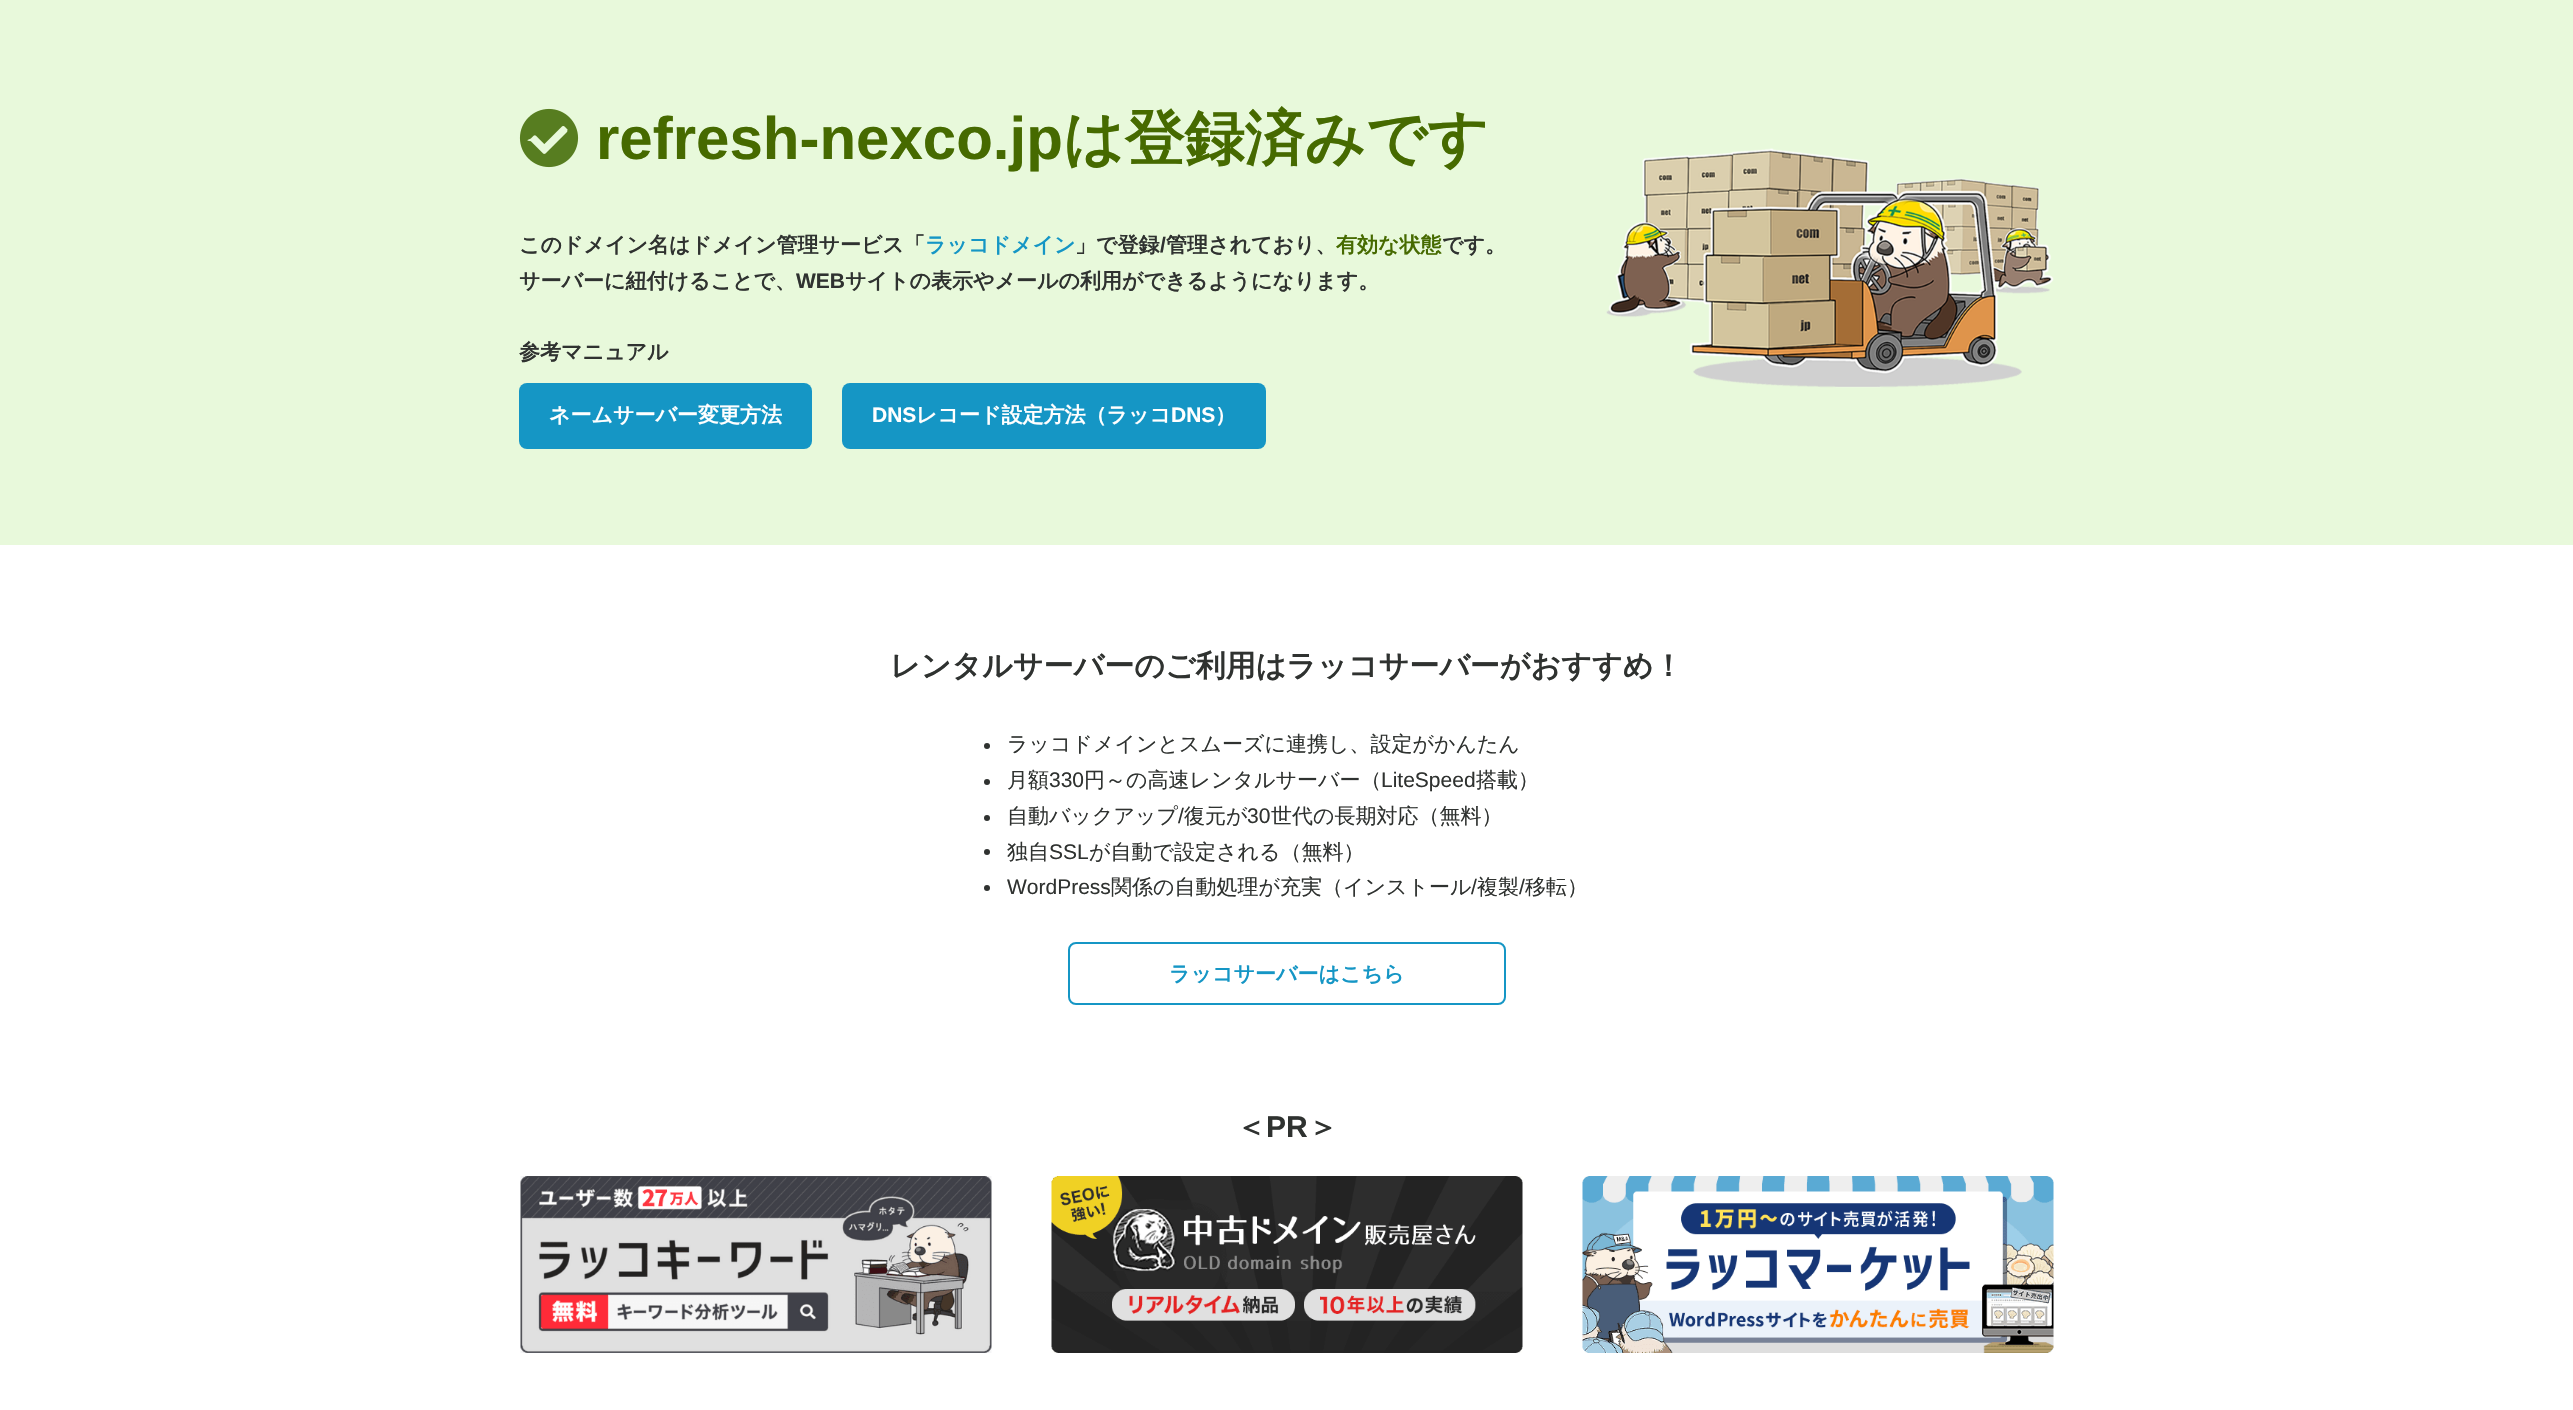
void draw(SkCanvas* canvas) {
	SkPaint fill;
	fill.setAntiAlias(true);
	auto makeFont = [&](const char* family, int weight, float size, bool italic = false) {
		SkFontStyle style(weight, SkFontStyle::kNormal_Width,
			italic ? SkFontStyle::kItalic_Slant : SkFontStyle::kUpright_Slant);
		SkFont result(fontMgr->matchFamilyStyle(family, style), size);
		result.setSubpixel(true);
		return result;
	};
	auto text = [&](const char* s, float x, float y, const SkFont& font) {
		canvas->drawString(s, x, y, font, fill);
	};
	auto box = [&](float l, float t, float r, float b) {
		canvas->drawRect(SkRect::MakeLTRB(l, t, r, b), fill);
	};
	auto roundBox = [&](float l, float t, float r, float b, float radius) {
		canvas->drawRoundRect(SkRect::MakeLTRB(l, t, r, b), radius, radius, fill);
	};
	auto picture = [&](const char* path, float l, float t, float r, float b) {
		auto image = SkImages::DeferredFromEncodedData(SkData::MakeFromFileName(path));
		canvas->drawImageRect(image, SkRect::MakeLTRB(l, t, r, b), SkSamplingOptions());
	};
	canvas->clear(0xFFFFFFFF);
	fill.setColor(0xFFE8F9DB);
	box(0, 0, 2573, 545);
	picture("image0.png", 519, 108, 579, 168);
	fill.setColor(0xFF1596C5);
	roundBox(519, 383, 812, 449, 8);
	roundBox(842, 383, 1266, 449, 8);
	picture("image1.png", 1606, 148, 2054, 388);
	fill.setColor(0xFF2F3230);
	canvas->drawCircle(987, 746, 3, fill);
	canvas->drawCircle(987, 782, 3, fill);
	canvas->drawCircle(987, 818, 3, fill);
	canvas->drawCircle(987, 852, 3, fill);
	canvas->drawCircle(987, 888, 3, fill);
	fill.setStyle(SkPaint::kStroke_Style);
	fill.setStrokeWidth(2);
	fill.setColor(0xFF1596C5);
	canvas->drawRoundRect(SkRect::MakeLTRB(1069, 943, 1505, 1004), 7, 7, fill);
	picture("image2.png", 520, 1176, 992, 1353);
	picture("image3.png", 1051, 1176, 1523, 1353);
	picture("image4.png", 1582, 1176, 2054, 1353);
	auto font1 = makeFont("Liberation Sans", 700, 60);
	fill.setStyle(SkPaint::kFill_Style);
	fill.setColor(0xFF466A00);
	text("refresh-nexco.jp", 596, 159, font1);
	auto font2 = makeFont("WenQuanYi Zen Hei", 700, 60);
	text("は登録済みです", 1063, 159, font2);
	auto font3 = makeFont("WenQuanYi Zen Hei", 700, 21);
	fill.setColor(0xFF2F3230);
	text("このドメイン名はドメイン管理サービス「", 519, 252, font3);
	fill.setColor(0xFF1596C5);
	text("ラッコドメイン", 925, 252, font3);
	fill.setColor(0xFF2F3230);
	text("」で登録", 1075, 252, font3);
	auto font4 = makeFont("Liberation Sans", 700, 21);
	text("/", 1160, 252, font4);
	text("管理されており、", 1166, 252, font3);
	fill.setColor(0xFF466A00);
	text("有効な状態", 1336, 252, font3);
	fill.setColor(0xFF2F3230);
	text("です。", 1442, 252, font3);
	text("サーバーに紐付けることで、", 519, 288, font3);
	text("WEB", 796, 288, font4);
	text("サイトの表示やメールの利用ができるようになります。", 845, 288, font3);
	text("参考マニュアル", 519, 359, font3);
	fill.setColor(0xFFFFFFFF);
	text("ネームサーバー変更方法", 549, 422, font3);
	text("DNS", 872, 422, font4);
	text("レコード設定方法（ラッコ", 916, 422, font3);
	text("DNS", 1171, 422, font4);
	text("）", 1215, 422, font3);
	auto font5 = makeFont("WenQuanYi Zen Hei", 700, 30);
	fill.setColor(0xFF2F3230);
	text("レンタルサーバーのご利用はラッコサーバーがおすすめ！", 890, 676, font5);
	auto font6 = makeFont("WenQuanYi Zen Hei", 500, 21);
	text("ラッコドメインとスムーズに連携し、設定がかんたん", 1007, 751, font6);
	text("月額", 1007, 787, font6);
	auto font7 = makeFont("Liberation Sans", 400, 21);
	text("330", 1049, 787, font7);
	text("円～の高速レンタルサーバー（", 1084, 787, font6);
	text("LiteSpeed", 1381, 787, font7);
	text("搭載）", 1476, 787, font6);
	text("自動バックアップ", 1007, 823, font6);
	text("/", 1178, 823, font7);
	text("復元が", 1184, 823, font6);
	text("30", 1247, 823, font7);
	text("世代の長期対応（無料）", 1271, 823, font6);
	text("独自", 1007, 859, font6);
	text("SSL", 1049, 859, font7);
	text("が自動で設定される（無料）", 1089, 859, font6);
	text("WordPress", 1007, 894, font7);
	text("関係の自動処理が充実（インストール", 1111, 894, font6);
	text("/", 1471, 894, font7);
	text("複製", 1477, 894, font6);
	text("/", 1519, 894, font7);
	text("移転）", 1525, 894, font6);
	fill.setColor(0xFF1596C5);
	text("ラッコサーバーはこちら", 1169, 981, font3);
	fill.setColor(0xFF2F3230);
	text("＜", 1236, 1137, font5);
	auto font8 = makeFont("Liberation Sans", 700, 30);
	text("PR", 1266, 1137, font8);
	text("＞", 1308, 1137, font5);
}
